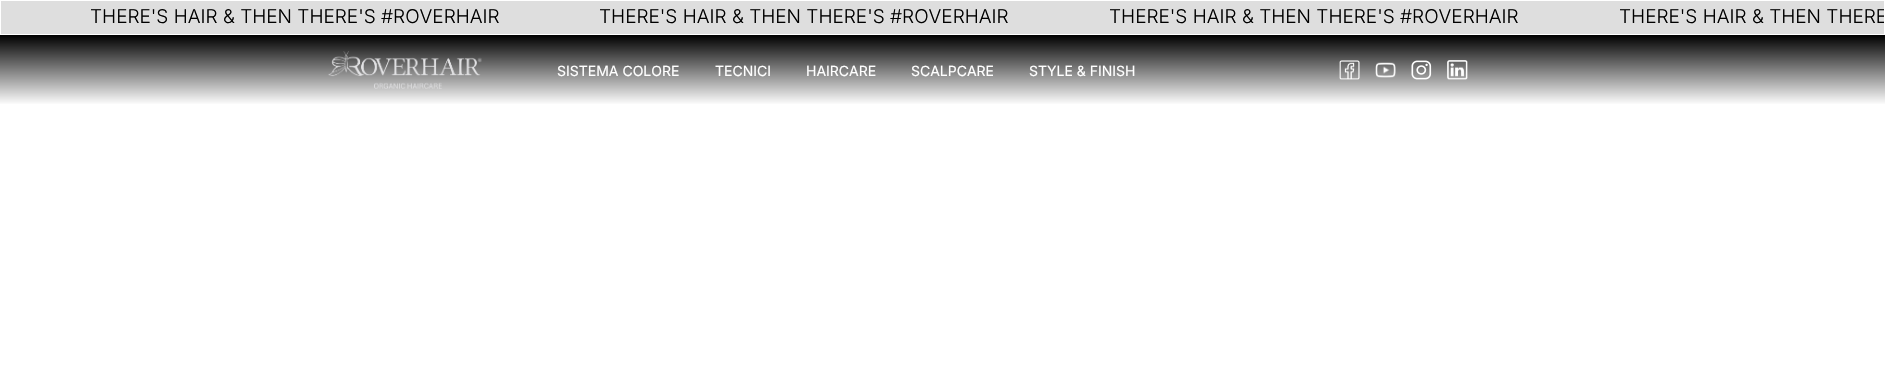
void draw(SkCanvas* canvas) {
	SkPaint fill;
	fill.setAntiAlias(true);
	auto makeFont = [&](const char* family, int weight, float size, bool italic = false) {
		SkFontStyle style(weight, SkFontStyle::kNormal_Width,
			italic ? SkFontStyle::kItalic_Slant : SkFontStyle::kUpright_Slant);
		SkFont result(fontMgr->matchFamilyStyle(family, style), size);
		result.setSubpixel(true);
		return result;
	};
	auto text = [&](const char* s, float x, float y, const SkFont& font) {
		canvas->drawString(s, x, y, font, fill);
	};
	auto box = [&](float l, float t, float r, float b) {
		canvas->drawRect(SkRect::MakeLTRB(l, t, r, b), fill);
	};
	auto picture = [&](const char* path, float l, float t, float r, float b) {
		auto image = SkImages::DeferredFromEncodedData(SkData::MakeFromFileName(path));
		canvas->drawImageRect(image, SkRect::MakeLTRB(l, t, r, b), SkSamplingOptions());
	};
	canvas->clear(0xFFFFFFFF);
	fill.setColor(0xFFDEDEDE);
	box(1, 1, 1884, 34);
	{
		const SkColor colors[] = {0xFF000000, 0xFFFFFFFF};
		const float stops[] = {0, 1};
		const SkPoint ends[] = {{943, 35}, {943, 105}};
		fill.setShader(SkGradientShader::MakeLinear(ends, colors, stops, 2, SkTileMode::kClamp));
		fill.setAlpha(255);
	}
	box(0, 35, 1885, 104);
	picture("image0.png", 328, 51, 482, 89);
	picture("image1.png", 1339, 60, 1360, 80);
	picture("image2.png", 1375, 62, 1396, 78);
	picture("image3.png", 1411, 60, 1432, 80);
	picture("image4.png", 1447, 60, 1468, 80);
	auto font1 = makeFont("Inter", 300, 19);
	fill.setShader(nullptr);
	fill.setColor(0xFF000000);
	text("THERE'S HAIR & THEN THERE'S #ROVERHAIR", 90, 23, font1);
	text("THERE'S HAIR & THEN THERE'S #ROVERHAIR", 599, 23, font1);
	text("THERE'S HAIR & THEN THERE'S #ROVERHAIR", 1109, 23, font1);
	canvas->save();
	canvas->clipRect(SkRect::MakeLTRB(1, 1, 1884, 34));
	text("THERE'S HAIR & THEN THERE", 1619, 23, font1);
	canvas->restore();
	auto font2 = makeFont("Inter", 400, 14);
	fill.setColor(0xFFFFFFFF);
	text("SISTEMA COLORE", 557, 76, font2);
	text("TECNICI", 715, 76, font2);
	text("HAIRCARE", 806, 76, font2);
	text("SCALPCARE", 911, 76, font2);
	text("STYLE & FINISH", 1029, 76, font2);
}
